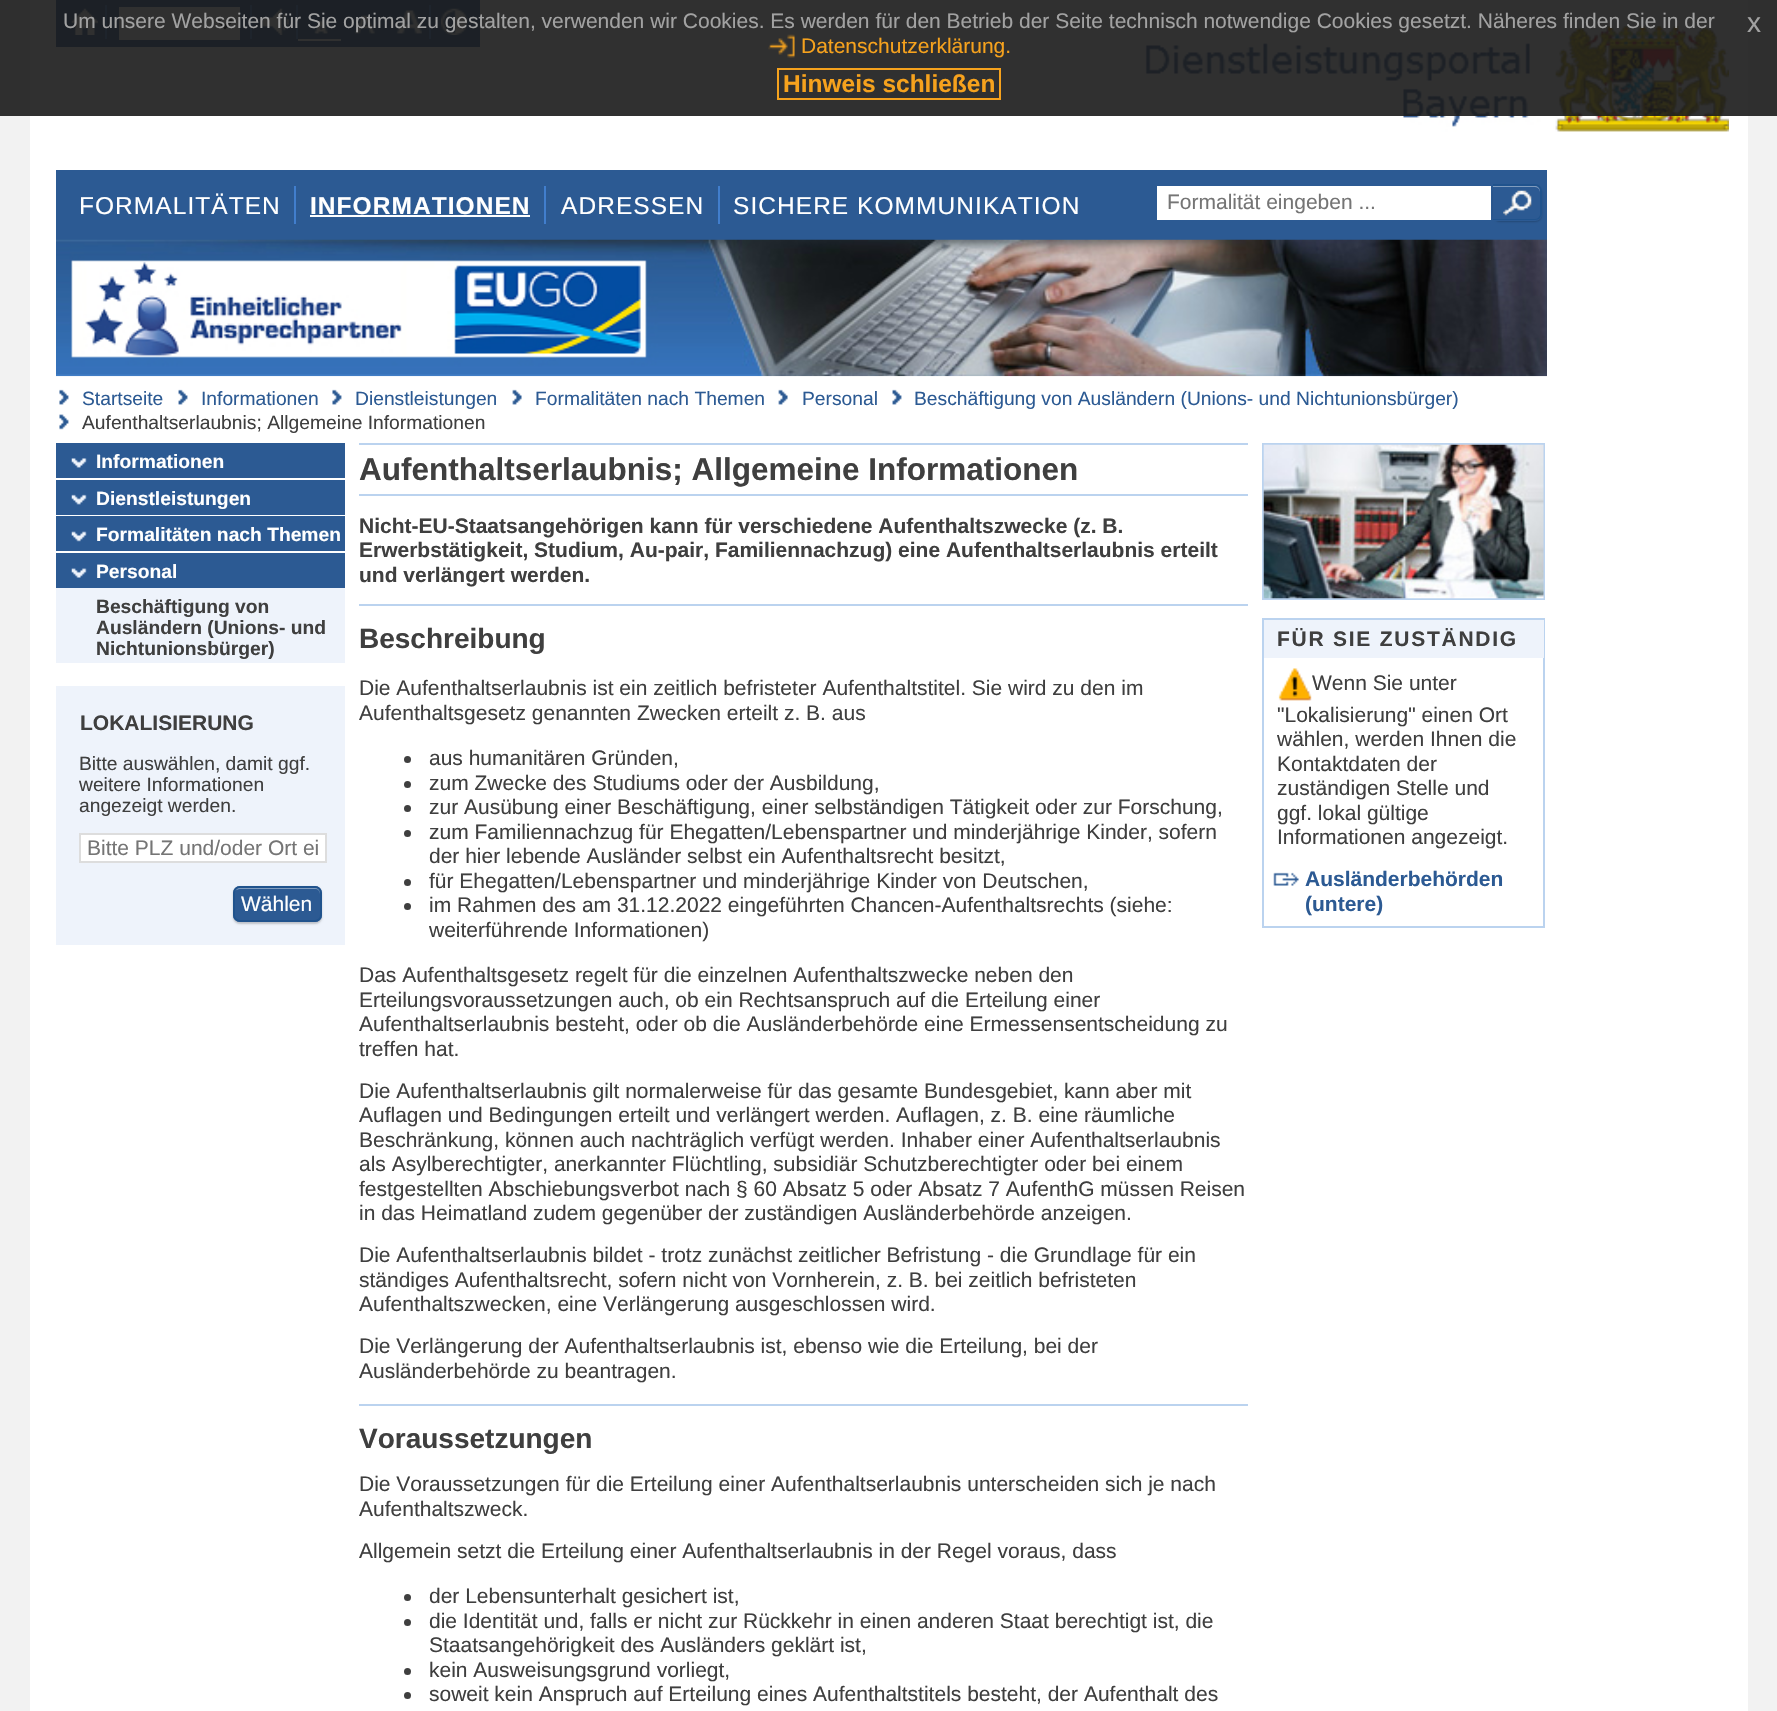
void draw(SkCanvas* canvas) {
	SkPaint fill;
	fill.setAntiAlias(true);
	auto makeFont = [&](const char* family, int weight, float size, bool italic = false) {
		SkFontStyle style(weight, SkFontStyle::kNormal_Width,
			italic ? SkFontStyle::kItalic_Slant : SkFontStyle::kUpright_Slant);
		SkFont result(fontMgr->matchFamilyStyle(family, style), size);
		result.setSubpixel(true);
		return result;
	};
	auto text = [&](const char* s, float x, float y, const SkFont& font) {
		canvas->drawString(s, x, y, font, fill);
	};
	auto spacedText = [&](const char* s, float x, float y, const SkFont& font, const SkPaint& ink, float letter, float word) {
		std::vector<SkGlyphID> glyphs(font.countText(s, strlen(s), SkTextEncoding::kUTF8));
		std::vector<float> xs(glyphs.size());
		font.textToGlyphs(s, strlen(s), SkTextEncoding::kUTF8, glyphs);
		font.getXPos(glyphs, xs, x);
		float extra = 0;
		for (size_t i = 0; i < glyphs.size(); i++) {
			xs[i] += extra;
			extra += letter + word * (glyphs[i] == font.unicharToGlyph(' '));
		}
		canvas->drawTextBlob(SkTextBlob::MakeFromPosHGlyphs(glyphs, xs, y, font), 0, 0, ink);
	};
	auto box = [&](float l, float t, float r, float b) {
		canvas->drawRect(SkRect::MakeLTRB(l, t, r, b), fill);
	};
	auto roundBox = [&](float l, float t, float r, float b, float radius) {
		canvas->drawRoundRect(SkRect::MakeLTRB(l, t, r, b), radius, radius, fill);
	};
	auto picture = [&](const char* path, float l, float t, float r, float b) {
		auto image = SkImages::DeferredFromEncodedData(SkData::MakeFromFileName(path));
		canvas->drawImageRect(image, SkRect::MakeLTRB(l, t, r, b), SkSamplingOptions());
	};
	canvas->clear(0xFFF2F2F2);
	fill.setColor(0xFFFFFFFF);
	box(30, 0, 1748, 1711);
	fill.setColor(0xFF2C5A93);
	box(56, 0, 480, 47);
	fill.setColor(0xFF417ECD);
	box(105, 5, 107, 39);
	picture("image1.png", 71, 8, 98, 35);
	box(250, 5, 252, 39);
	fill.setColor(0xFFFFFFFF);
	box(119, 7, 240, 40);
	fill.setStyle(SkPaint::kStroke_Style);
	fill.setStrokeWidth(3.5f);
	fill.setColor(0xFF000000);
	canvas->drawPath(SkPathBuilder().moveTo(218, 20).lineTo(225, 27).lineTo(232, 20).detach(), fill);
	fill.setStyle(SkPaint::kFill_Style);
	fill.setColor(0xFF417ECD);
	box(296, 5, 298, 39);
	picture("image2.png", 262, 8, 289, 35);
	fill.setColor(0xFFFFFFFF);
	box(298, 39, 341, 41);
	picture("image3.png", 314, 20, 328, 34);
	picture("image4.png", 354, 15, 375, 34);
	fill.setColor(0xFF417ECD);
	box(429, 5, 431, 39);
	picture("image5.png", 396, 10, 422, 34);
	picture("image6.png", 441, 8, 468, 35);
	picture("image7.png", 1145, 26, 1729, 132);
	fill.setColor(0xE6191919);
	box(0, 0, 1777, 116);
	picture("image0.png", 768, 34, 795, 58);
	fill.setStyle(SkPaint::kStroke_Style);
	fill.setStrokeWidth(2);
	fill.setColor(0xFFF6A21D);
	canvas->drawRect(SkRect::MakeLTRB(778, 69, 1000, 99), fill);
	fill.setStyle(SkPaint::kFill_Style);
	fill.setColor(0xFF2C5A93);
	box(56, 170, 1547, 240);
	fill.setColor(0xFF417ECD);
	box(294, 186, 296, 224);
	box(544, 186, 546, 224);
	fill.setColor(0xFFFFFFFF);
	box(310, 215, 530, 217);
	fill.setColor(0xFF417ECD);
	box(718, 186, 720, 224);
	fill.setColor(0xFFFFFFFF);
	box(1157, 186, 1491, 220);
	fill.setColor(0x33000000);
	fill.setMaskFilter(SkMaskFilter::MakeBlur(kNormal_SkBlurStyle, 1));
	canvas->drawRoundRect(SkRect::MakeLTRB(1493, 186, 1542, 222), 7, 7, fill);
	fill.setMaskFilter(nullptr);
	fill.setColor(0xFF2C5A93);
	canvas->drawPath(SkPathBuilder().moveTo(1493, 184).lineTo(1535, 184).cubicTo(1539, 184, 1542, 187, 1542, 191).lineTo(1542, 214).cubicTo(1542, 218, 1539, 221, 1535, 221).lineTo(1493, 221).close().detach(), fill);
	fill.setColor(0xFF809CBE);
	canvas->drawPath(SkPathBuilder().moveTo(1493, 187).lineTo(1535, 187).cubicTo(1538, 187, 1540, 190, 1540, 192).lineTo(1540, 191).cubicTo(1540, 188, 1538, 186, 1535, 186).lineTo(1493, 186).close().detach(), fill);
	fill.setColor(0xFF20538D);
	canvas->drawPath(SkPathBuilder(SkPathFillType::kEvenOdd).moveTo(1493, 184).lineTo(1535, 184).cubicTo(1539, 184, 1542, 187, 1542, 191).lineTo(1542, 214).cubicTo(1542, 217, 1539, 220, 1535, 220).lineTo(1493, 220).close().moveTo(1493, 186).lineTo(1535, 186).cubicTo(1538, 186, 1540, 188, 1540, 191).lineTo(1540, 214).cubicTo(1540, 216, 1538, 219, 1535, 219).lineTo(1493, 219).close().detach(), fill);
	picture("image8.png", 1503, 190, 1532, 216);
	picture("image9.png", 56, 239, 1547, 377);
	picture("image10.png", 59, 389, 69, 405);
	picture("image11.png", 178, 389, 188, 405);
	picture("image10.png", 332, 389, 342, 405);
	picture("image12.png", 512, 389, 522, 405);
	picture("image12.png", 778, 389, 788, 405);
	picture("image11.png", 892, 389, 902, 405);
	picture("image13.png", 59, 414, 69, 430);
	fill.setColor(0xFF2C5A93);
	box(56, 443, 345, 478);
	picture("image14.png", 71, 458, 87, 468);
	box(56, 480, 345, 515);
	picture("image15.png", 71, 494, 87, 505);
	box(56, 516, 345, 551);
	picture("image16.png", 71, 531, 87, 542);
	box(56, 553, 345, 588);
	picture("image17.png", 71, 568, 87, 578);
	fill.setColor(0xFFEEF3FB);
	box(56, 588, 345, 663);
	box(56, 686, 345, 945);
	fill.setColor(0xFFFFFFFF);
	canvas->drawRect(SkRect::MakeLTRB(80, 834, 326, 862), fill);
	fill.setStyle(SkPaint::kStroke_Style);
	fill.setColor(0xFFDDDDDD);
	canvas->drawRect(SkRect::MakeLTRB(80, 834, 326, 862), fill);
	fill.setStyle(SkPaint::kFill_Style);
	fill.setColor(0x33000000);
	fill.setMaskFilter(SkMaskFilter::MakeBlur(kNormal_SkBlurStyle, 1));
	canvas->drawRoundRect(SkRect::MakeLTRB(233, 887, 322, 924), 7, 7, fill);
	fill.setMaskFilter(nullptr);
	fill.setColor(0xFF2C5A93);
	roundBox(233, 886, 322, 922, 7);
	fill.setColor(0xFF809CBE);
	canvas->drawPath(SkPathBuilder().moveTo(240, 889).lineTo(315, 889).cubicTo(318, 889, 320, 891, 320, 894).lineTo(320, 892).cubicTo(320, 889, 318, 887, 315, 887).lineTo(240, 887).cubicTo(238, 887, 235, 889, 235, 891).cubicTo(236, 890, 238, 889, 240, 889).close().detach(), fill);
	fill.setStyle(SkPaint::kStroke_Style);
	fill.setColor(0xFF20538D);
	canvas->drawRoundRect(SkRect::MakeLTRB(234, 887, 321, 921), 6, 6, fill);
	fill.setStyle(SkPaint::kFill_Style);
	fill.setColor(0xFFBBD3EF);
	box(359, 443, 1248, 445);
	box(359, 494, 1248, 496);
	box(359, 604, 1248, 606);
	box(359, 1404, 1248, 1406);
	fill.setColor(0xFF3F3F3F);
	canvas->drawCircle(407.5f, 759.5f, 3.5f, fill);
	canvas->drawCircle(407.5f, 784.5f, 3.5f, fill);
	canvas->drawCircle(407.5f, 808.5f, 3.5f, fill);
	canvas->drawCircle(407.5f, 833.5f, 3.5f, fill);
	canvas->drawCircle(407.5f, 882.5f, 3.5f, fill);
	canvas->drawCircle(407.5f, 906.5f, 3.5f, fill);
	canvas->drawCircle(407.5f, 1597.5f, 3.5f, fill);
	canvas->drawCircle(407.5f, 1622.5f, 3.5f, fill);
	canvas->drawCircle(407.5f, 1671.5f, 3.5f, fill);
	canvas->drawCircle(407.5f, 1695.5f, 3.5f, fill);
	fill.setStyle(SkPaint::kStroke_Style);
	fill.setColor(0xFFBBD3EF);
	canvas->drawRect(SkRect::MakeLTRB(1263, 444, 1544, 599), fill);
	picture("image18.png", 1263, 444, 1544, 599);
	canvas->drawRect(SkRect::MakeLTRB(1263, 619, 1544, 927), fill);
	fill.setStyle(SkPaint::kFill_Style);
	fill.setColor(0xFFEEF3FB);
	box(1264, 620, 1544, 658);
	picture("image19.png", 1278, 668, 1312, 701);
	picture("image20.png", 1273, 872, 1299, 886);
	auto font1 = makeFont("Liberation Sans", 400, 21);
	fill.setColor(0xFFA2A2A2);
	text("Um unsere Webseiten für Sie optimal zu gestalten, verwenden wir Cookies. Es werden für den Betrieb der Seite technisch notwendige Cookies gesetzt. Näheres finden Sie in der", 63, 28, font1);
	fill.setColor(0xFFF6A21D);
	text("Datenschutzerklärung.", 801, 53, font1);
	auto font2 = makeFont("Liberation Sans", 400, 28);
	fill.setColor(0xFFA2A2A2);
	text("x", 1747, 32, font2);
	auto font3 = makeFont("Liberation Sans", 700, 24.5f);
	fill.setColor(0xFFF6A21D);
	text("Hinweis schließen", 783, 92, font3);
	auto font4 = makeFont("Liberation Sans", 400, 24.5f);
	fill.setColor(0xFFFFFFFF);
	spacedText("FORMALITÄTEN", 79, 214, font4, fill, 1.05f, 0);
	spacedText("INFORMATIONEN", 310, 214, font3, fill, 1.05f, 0);
	spacedText("ADRESSEN", 561, 214, font4, fill, 1.05f, 0);
	spacedText("SICHERE KOMMUNIKATION", 733, 214, font4, fill, 1.05f, 0);
	fill.setColor(0xFF757575);
	text("Formalität eingeben ...", 1167, 209, font1);
	auto font5 = makeFont("Liberation Sans", 400, 19.25f);
	fill.setColor(0xFF2C5A93);
	text("Startseite", 82, 405, font5);
	text("Informationen", 201, 405, font5);
	text("Dienstleistungen", 355, 405, font5);
	text("Formalitäten nach Themen", 535, 405, font5);
	text("Personal", 802, 405, font5);
	text("Beschäftigung von Ausländern (Unions- und Nichtunionsbürger)", 914, 405, font5);
	fill.setColor(0xFF3F3F3F);
	text("Aufenthaltserlaubnis; Allgemeine Informationen", 82, 429, font5);
	auto font6 = makeFont("Liberation Sans", 700, 19.25f);
	fill.setColor(0xFFFFFFFF);
	text("Informationen", 96, 468, font6);
	text("Dienstleistungen", 96, 505, font6);
	text("Formalitäten nach Themen", 96, 541, font6);
	text("Personal", 96, 578, font6);
	fill.setColor(0xFF3F3F3F);
	text("Beschäftigung von", 96, 613, font6);
	text("Ausländern (Unions- und", 96, 634, font6);
	text("Nichtunionsbürger)", 96, 655, font6);
	auto font7 = makeFont("Liberation Sans", 700, 21);
	text("LOKALISIERUNG", 80, 730, font7);
	text("Bitte auswählen, damit ggf.", 79, 770, font5);
	text("weitere Informationen", 79, 791, font5);
	text("angezeigt werden.", 79, 812, font5);
	fill.setColor(0xFF757575);
	text("Bitte PLZ und/oder Ort ei", 87, 855, font1);
	fill.setColor(0xFFFFFFFF);
	text("Wählen", 241, 911, font1);
	auto font8 = makeFont("Liberation Sans", 700, 31.5f);
	fill.setColor(0xFF3F3F3F);
	text("Aufenthaltserlaubnis; Allgemeine Informationen", 359, 480, font8);
	text("Nicht-EU-Staatsangehörigen kann für verschiedene Aufenthaltszwecke (z. B.", 359, 533, font7);
	text("Erwerbstätigkeit, Studium, Au-pair, Familiennachzug) eine Aufenthaltserlaubnis erteilt", 359, 557, font7);
	text("und verlängert werden.", 359, 582, font7);
	auto font9 = makeFont("Liberation Sans", 700, 28);
	text("Beschreibung", 359, 648, font9);
	text("Die Aufenthaltserlaubnis ist ein zeitlich befristeter Aufenthaltstitel. Sie wird zu den im", 359, 695, font1);
	text("Aufenthaltsgesetz genannten Zwecken erteilt z. B. aus", 359, 720, font1);
	text("aus humanitären Gründen,", 429, 765, font1);
	text("zum Zwecke des Studiums oder der Ausbildung,", 429, 790, font1);
	text("zur Ausübung einer Beschäftigung, einer selbständigen Tätigkeit oder zur Forschung,", 429, 814, font1);
	text("zum Familiennachzug für Ehegatten/Lebenspartner und minderjährige Kinder, sofern", 429, 839, font1);
	text("der hier lebende Ausländer selbst ein Aufenthaltsrecht besitzt,", 429, 863, font1);
	text("für Ehegatten/Lebenspartner und minderjährige Kinder von Deutschen,", 429, 888, font1);
	text("im Rahmen des am 31.12.2022 eingeführten Chancen-Aufenthaltsrechts (siehe:", 429, 912, font1);
	text("weiterführende Informationen)", 429, 937, font1);
	text("Das Aufenthaltsgesetz regelt für die einzelnen Aufenthaltszwecke neben den", 359, 982, font1);
	text("Erteilungsvoraussetzungen auch, ob ein Rechtsanspruch auf die Erteilung einer", 359, 1007, font1);
	text("Aufenthaltserlaubnis besteht, oder ob die Ausländerbehörde eine Ermessensentscheidung zu", 359, 1031, font1);
	text("treffen hat.", 359, 1056, font1);
	text("Die Aufenthaltserlaubnis gilt normalerweise für das gesamte Bundesgebiet, kann aber mit", 359, 1098, font1);
	text("Auflagen und Bedingungen erteilt und verlängert werden. Auflagen, z. B. eine räumliche", 359, 1122, font1);
	text("Beschränkung, können auch nachträglich verfügt werden. Inhaber einer Aufenthaltserlaubnis", 359, 1147, font1);
	text("als Asylberechtigter, anerkannter Flüchtling, subsidiär Schutzberechtigter oder bei einem", 359, 1171, font1);
	text("festgestellten Abschiebungsverbot nach § 60 Absatz 5 oder Absatz 7 AufenthG müssen Reisen", 359, 1196, font1);
	text("in das Heimatland zudem gegenüber der zuständigen Ausländerbehörde anzeigen.", 359, 1220, font1);
	text("Die Aufenthaltserlaubnis bildet - trotz zunächst zeitlicher Befristung - die Grundlage für ein", 359, 1262, font1);
	text("ständiges Aufenthaltsrecht, sofern nicht von Vornherein, z. B. bei zeitlich befristeten", 359, 1287, font1);
	text("Aufenthaltszwecken, eine Verlängerung ausgeschlossen wird.", 359, 1311, font1);
	text("Die Verlängerung der Aufenthaltserlaubnis ist, ebenso wie die Erteilung, bei der", 359, 1353, font1);
	text("Ausländerbehörde zu beantragen.", 359, 1378, font1);
	text("Voraussetzungen", 359, 1448, font9);
	text("Die Voraussetzungen für die Erteilung einer Aufenthaltserlaubnis unterscheiden sich je nach", 359, 1491, font1);
	text("Aufenthaltszweck.", 359, 1516, font1);
	text("Allgemein setzt die Erteilung einer Aufenthaltserlaubnis in der Regel voraus, dass", 359, 1558, font1);
	text("der Lebensunterhalt gesichert ist,", 429, 1603, font1);
	text("die Identität und, falls er nicht zur Rückkehr in einen anderen Staat berechtigt ist, die", 429, 1628, font1);
	text("Staatsangehörigkeit des Ausländers geklärt ist,", 429, 1652, font1);
	text("kein Ausweisungsgrund vorliegt,", 429, 1677, font1);
	text("soweit kein Anspruch auf Erteilung eines Aufenthaltstitels besteht, der Aufenthalt des", 429, 1701, font1);
	spacedText("FÜR SIE ZUSTÄNDIG", 1277, 646, font7, fill, 1.75f, 0);
	text("Wenn Sie unter", 1312, 690, font1);
	text("\"Lokalisierung\" einen Ort", 1277, 722, font1);
	text("wählen, werden Ihnen die", 1277, 746, font1);
	text("Kontaktdaten der", 1277, 771, font1);
	text("zuständigen Stelle und", 1277, 795, font1);
	text("ggf. lokal gültige", 1277, 820, font1);
	text("Informationen angezeigt.", 1277, 844, font1);
	fill.setColor(0xFF2C5A93);
	text("Ausländerbehörden", 1305, 886, font7);
	text("(untere)", 1305, 911, font7);
}
